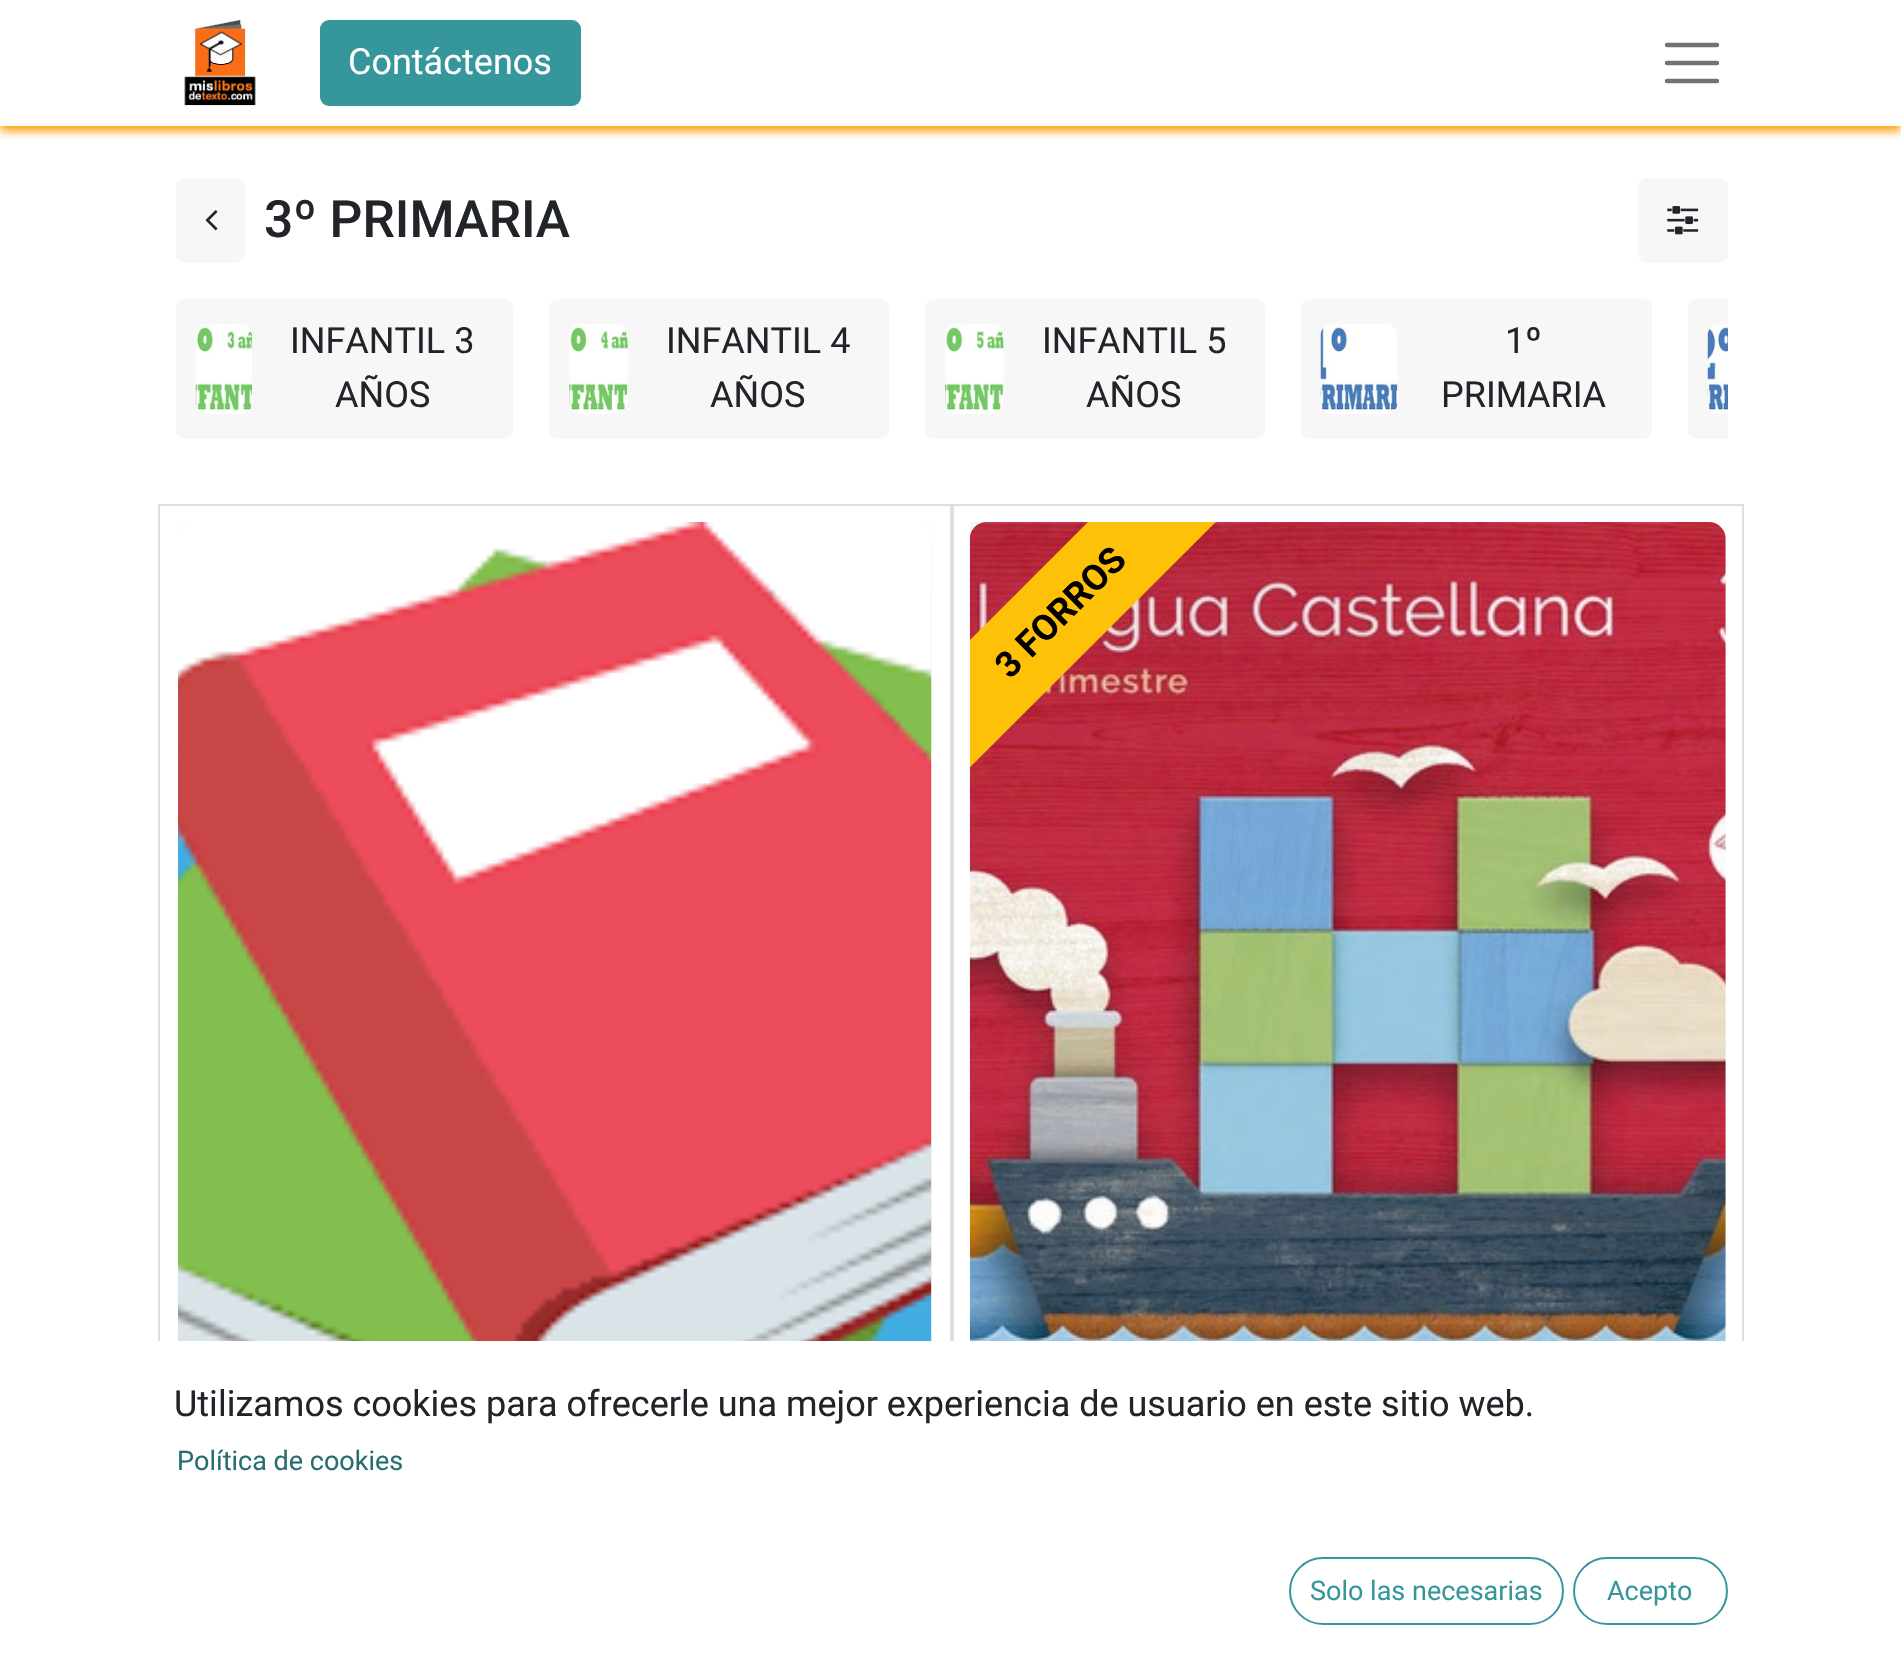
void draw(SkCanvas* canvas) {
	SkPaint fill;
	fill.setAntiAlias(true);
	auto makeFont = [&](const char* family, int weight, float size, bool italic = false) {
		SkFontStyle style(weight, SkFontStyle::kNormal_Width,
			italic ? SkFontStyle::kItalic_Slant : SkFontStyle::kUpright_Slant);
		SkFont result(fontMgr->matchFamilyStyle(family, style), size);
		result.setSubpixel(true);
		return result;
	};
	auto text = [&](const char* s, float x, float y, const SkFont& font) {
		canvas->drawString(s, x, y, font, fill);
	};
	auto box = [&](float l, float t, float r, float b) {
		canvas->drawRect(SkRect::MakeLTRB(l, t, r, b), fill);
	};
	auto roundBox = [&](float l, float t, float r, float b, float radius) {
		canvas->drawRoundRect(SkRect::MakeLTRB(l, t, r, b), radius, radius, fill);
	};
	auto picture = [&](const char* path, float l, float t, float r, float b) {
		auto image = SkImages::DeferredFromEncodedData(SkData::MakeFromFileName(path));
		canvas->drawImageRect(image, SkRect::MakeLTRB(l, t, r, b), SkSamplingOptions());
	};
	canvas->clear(0xFFFFFFFF);
	canvas->save();
	canvas->clipRect(SkRect::MakeLTRB(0, 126, 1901, 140));
	fill.setColor(0xFFFF9C00);
	fill.setMaskFilter(SkMaskFilter::MakeBlur(kNormal_SkBlurStyle, 4.5f));
	canvas->drawRect(SkRect::MakeLTRB(0, 5, 1901, 131), fill);
	fill.setMaskFilter(nullptr);
	canvas->restore();
	picture("image0.png", 184, 20, 256, 106);
	fill.setColor(0xFF35979C);
	canvas->drawRoundRect(SkRect::MakeLTRB(321, 21, 580, 105), 8, 8, fill);
	fill.setStyle(SkPaint::kStroke_Style);
	fill.setStrokeWidth(2);
	canvas->drawRoundRect(SkRect::MakeLTRB(321, 21, 580, 105), 8, 8, fill);
	fill.setStrokeWidth(4.5f);
	fill.setStrokeCap(SkPaint::kRound_Cap);
	fill.setColor(0xFF737373);
	canvas->drawPath(SkPathBuilder().moveTo(1667, 45).lineTo(1717, 45).moveTo(1667, 63).lineTo(1717, 63).moveTo(1667, 81).lineTo(1717, 81).detach(), fill);
	fill.setStyle(SkPaint::kFill_Style);
	fill.setColor(0xFFF7F7F7);
	roundBox(176, 178, 245, 263, 9);
	picture("image1.png", 205, 210, 218, 231);
	roundBox(1638, 178, 1728, 263, 9);
	picture("image2.png", 1667, 206, 1699, 235);
	roundBox(176, 299, 513, 439, 9);
	picture("image3.png", 195, 324, 252, 414);
	roundBox(549, 299, 889, 439, 9);
	picture("image4.png", 569, 324, 628, 414);
	roundBox(925, 299, 1265, 439, 9);
	picture("image5.png", 945, 324, 1004, 414);
	roundBox(1301, 299, 1652, 439, 9);
	picture("image6.png", 1320, 324, 1398, 414);
	canvas->drawPath(SkPathBuilder().moveTo(1697, 299).lineTo(1728, 299).lineTo(1728, 439).lineTo(1697, 439).cubicTo(1692, 439, 1688, 435, 1688, 430).lineTo(1688, 308).cubicTo(1688, 303, 1692, 299, 1697, 299).close().detach(), fill);
	picture("image7.png", 1707, 324, 1728, 414);
	fill.setStyle(SkPaint::kStroke_Style);
	fill.setStrokeWidth(2);
	fill.setStrokeCap(SkPaint::kButt_Cap);
	fill.setColor(0xFFDFDFDF);
	canvas->drawRect(SkRect::MakeLTRB(159, 505, 951, 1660), fill);
	canvas->drawRect(SkRect::MakeLTRB(953, 505, 1743, 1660), fill);
	canvas->save();
	canvas->clipRect(SkRect::MakeLTRB(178, 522, 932, 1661));
	fill.setStyle(SkPaint::kFill_Style);
	fill.setColor(0x47000000);
	fill.setMaskFilter(SkMaskFilter::MakeBlur(kNormal_SkBlurStyle, 18));
	canvas->drawRect(SkRect::MakeLTRB(196, 558, 914, 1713), fill);
	fill.setMaskFilter(nullptr);
	canvas->restore();
	picture("image8.png", 178, 522, 932, 1341);
	picture("image9.png", 969, 522, 1726, 1341);
	canvas->save();
	canvas->clipRect(SkRect::MakeLTRB(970, 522, 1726, 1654));
	fill.setColor(0x0D000000);
	fill.setMaskFilter(SkMaskFilter::MakeBlur(kNormal_SkBlurStyle, 79));
	canvas->drawRect(SkRect::MakeLTRB(684, 477, 1438, 702), fill);
	fill.setMaskFilter(nullptr);
	canvas->restore();
	canvas->save();
	canvas->clipRect(SkRect::MakeLTRB(970, 522, 1726, 1654));
	fill.setColor(0xFFFFC107);
	canvas->drawPath(SkPathBuilder().moveTo(811, 799).lineTo(1247, 363).lineTo(1311, 427).lineTo(874, 863).close().detach(), fill);
	canvas->restore();
	fill.setColor(0xFFFFFFFF);
	box(158, 1341, 1744, 1659);
	fill.setStyle(SkPaint::kStroke_Style);
	fill.setColor(0xFF35979C);
	canvas->drawRoundRect(SkRect::MakeLTRB(1290, 1558, 1563, 1624), 33, 33, fill);
	canvas->drawRoundRect(SkRect::MakeLTRB(1574, 1558, 1727, 1624), 33, 33, fill);
	auto font1 = makeFont("Roboto", 400, 36);
	fill.setStyle(SkPaint::kFill_Style);
	fill.setColor(0xFFFFFFFF);
	text("Contáctenos", 348, 74, font1);
	auto font2 = makeFont("Roboto", 500, 51.5f);
	fill.setColor(0xFF212529);
	text("3º PRIMARIA", 264, 237, font2);
	text("INFANTIL 3", 290, 353, font1);
	text("AÑOS", 335, 407, font1);
	text("INFANTIL 4", 666, 353, font1);
	text("AÑOS", 710, 407, font1);
	text("INFANTIL 5", 1042, 353, font1);
	text("AÑOS", 1086, 407, font1);
	text("1º", 1505, 353, font1);
	text("PRIMARIA", 1441, 407, font1);
	auto font3 = makeFont("Roboto", 700, 36);
	fill.setColor(0xFF000000);
	canvas->save();
	canvas->rotate(-45, 1010, 680);
	text("3 FORROS", 1010, 680, font3);
	canvas->restore();
	fill.setColor(0xFF212529);
	text("Utilizamos cookies para ofrecerle una mejor experiencia de usuario en este sitio web.", 174, 1416, font1);
	auto font4 = makeFont("Roboto", 400, 27);
	fill.setColor(0xFF276E72);
	text("Política de cookies", 177, 1470, font4);
	fill.setColor(0xFF35979C);
	text("Solo las necesarias", 1310, 1600, font4);
	text("Acepto", 1607, 1600, font4);
}
